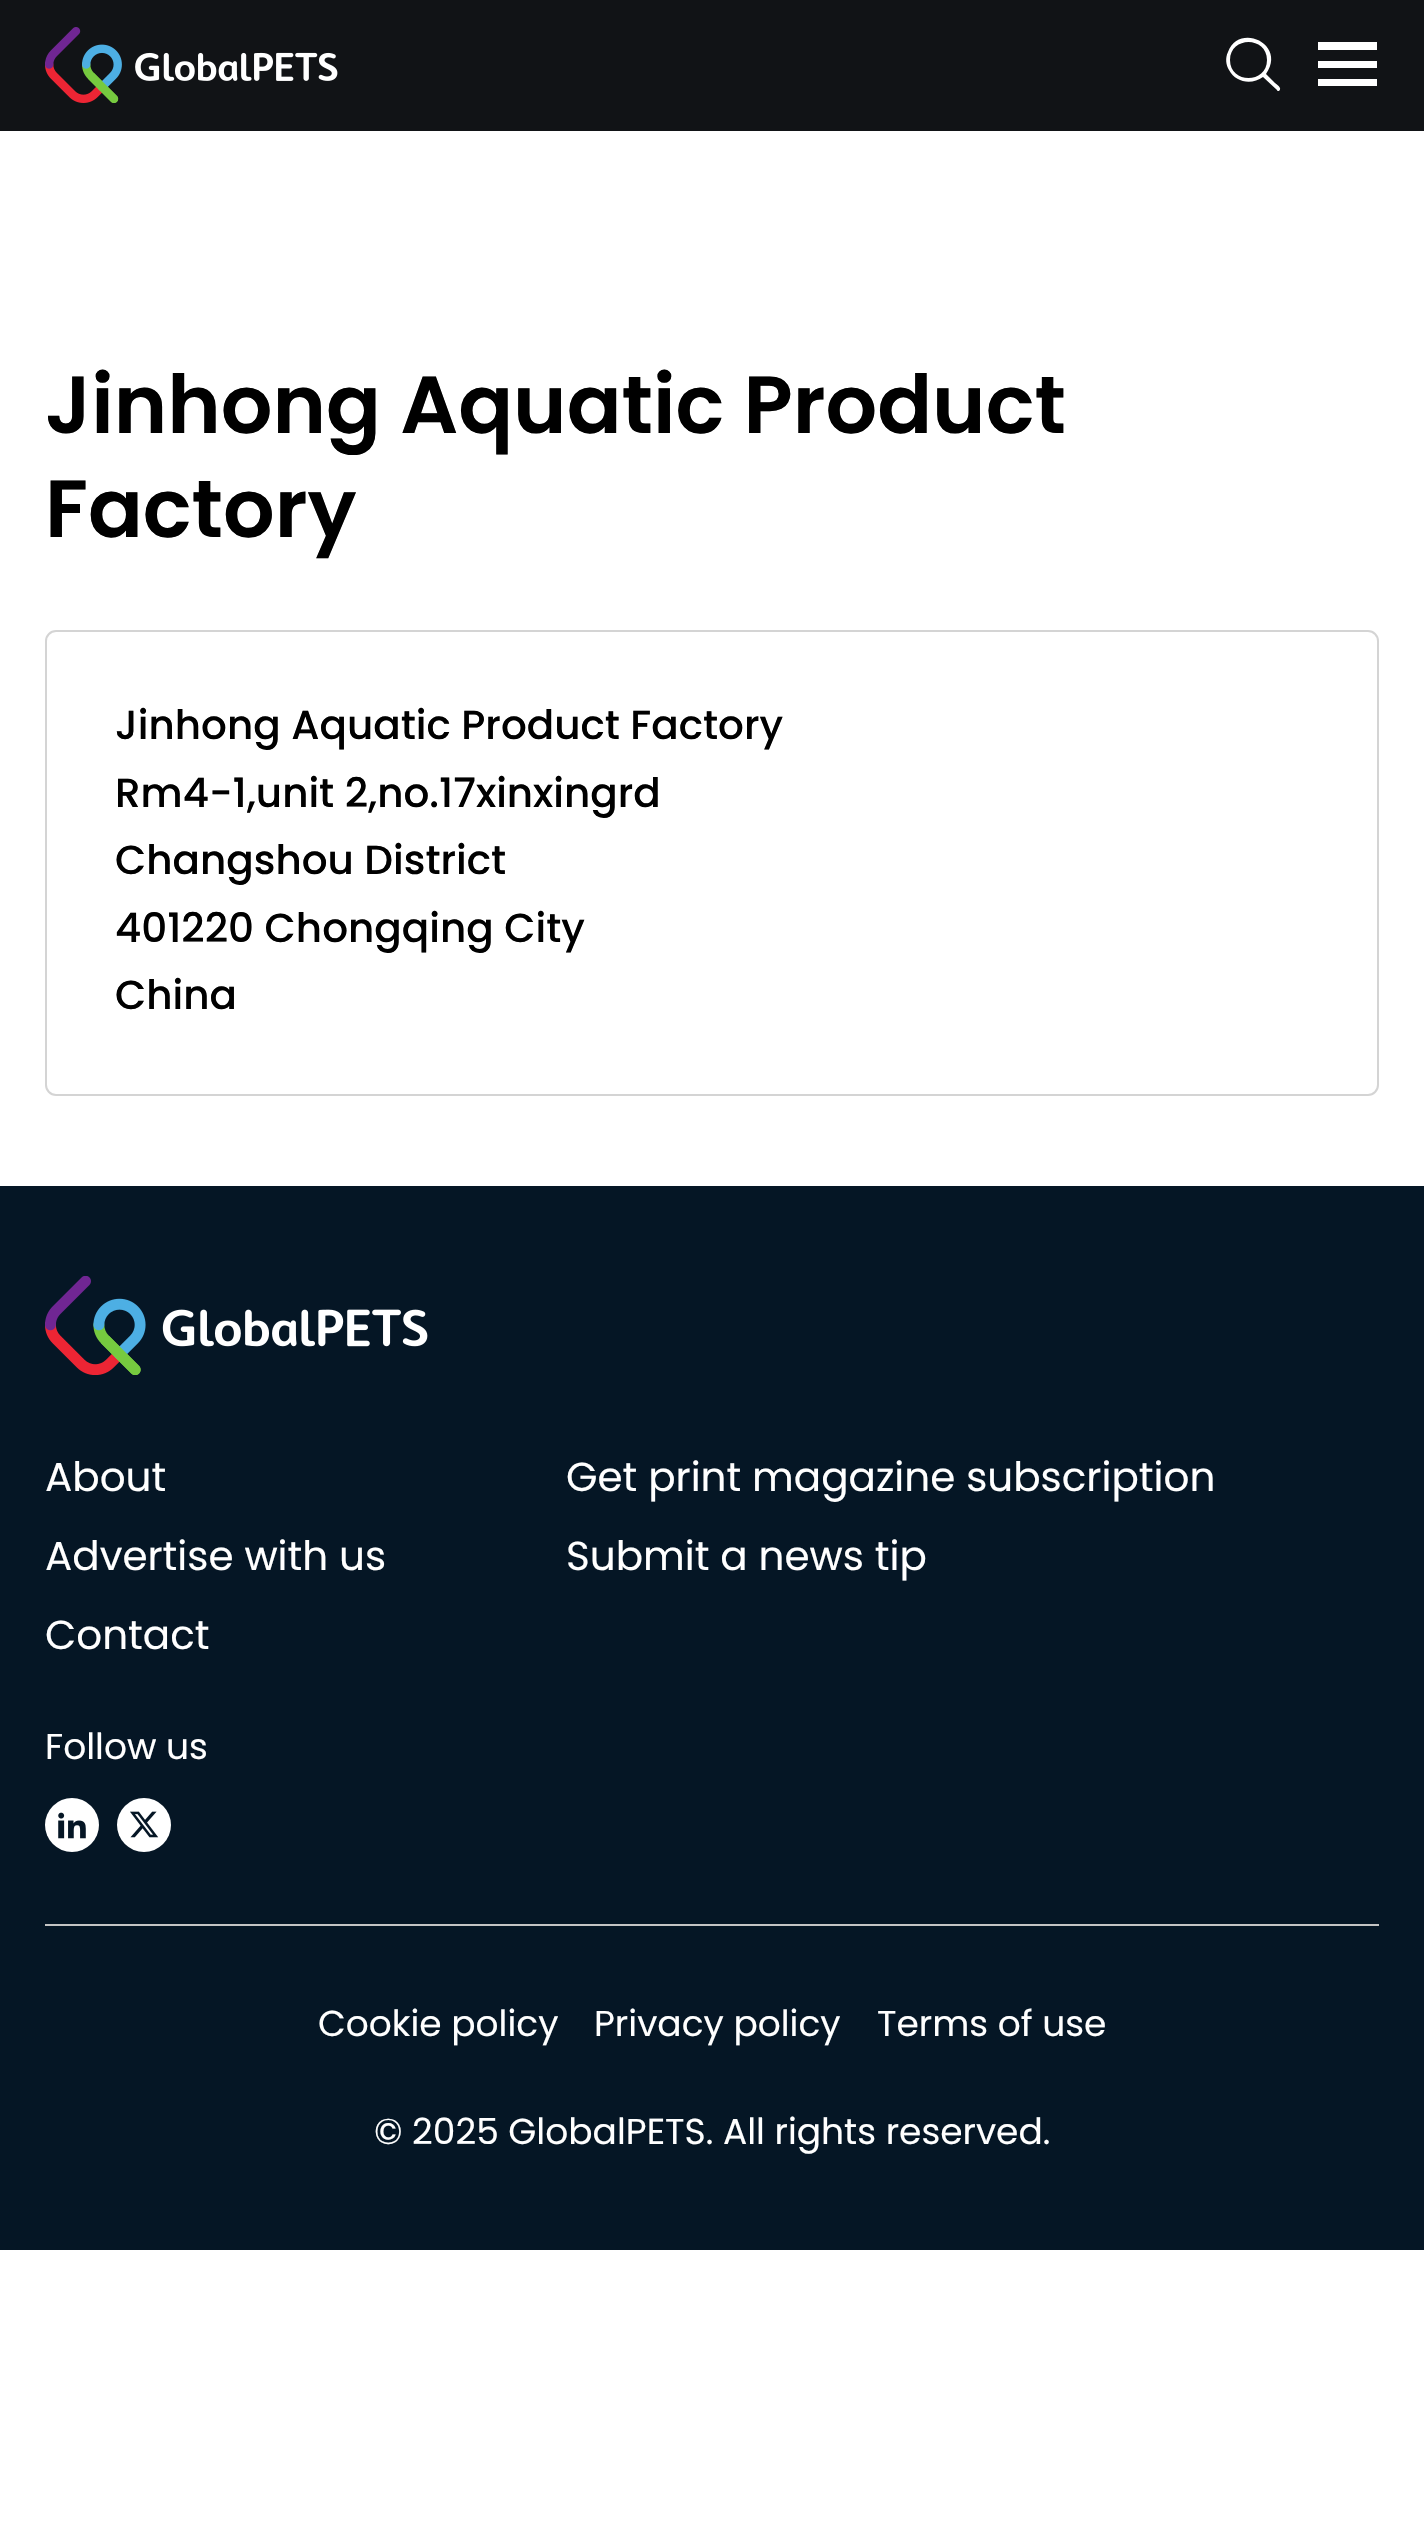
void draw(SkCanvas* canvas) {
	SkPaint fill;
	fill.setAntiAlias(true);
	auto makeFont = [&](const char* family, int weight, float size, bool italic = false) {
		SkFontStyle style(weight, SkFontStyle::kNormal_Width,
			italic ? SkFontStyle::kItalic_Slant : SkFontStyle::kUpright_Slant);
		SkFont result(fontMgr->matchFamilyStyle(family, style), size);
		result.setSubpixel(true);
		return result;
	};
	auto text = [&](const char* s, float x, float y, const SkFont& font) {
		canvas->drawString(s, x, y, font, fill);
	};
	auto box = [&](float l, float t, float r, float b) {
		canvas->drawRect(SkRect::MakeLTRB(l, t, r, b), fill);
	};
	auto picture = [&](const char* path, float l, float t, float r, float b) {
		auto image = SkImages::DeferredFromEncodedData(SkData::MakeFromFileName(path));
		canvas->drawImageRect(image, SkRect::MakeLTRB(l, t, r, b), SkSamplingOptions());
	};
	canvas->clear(0xFFFFFFFF);
	fill.setColor(0xFF111316);
	box(0, 0, 1424, 131);
	picture("image0.png", 45, 27, 338, 103);
	fill.setColor(0xFFFFFFFF);
	canvas->drawPath(SkPathBuilder().moveTo(1277, 90).lineTo(1263, 77).cubicTo(1252, 85, 1236, 83, 1229, 70).cubicTo(1226, 65, 1225, 58, 1228, 52).cubicTo(1239, 22, 1287, 44, 1266, 74).lineTo(1275, 83).cubicTo(1276, 84, 1283, 88, 1279, 91).cubicTo(1278, 91, 1277, 91, 1277, 90).close().moveTo(1267, 60).cubicTo(1267, 36, 1230, 36, 1230, 60).cubicTo(1230, 84, 1267, 84, 1267, 60).close().detach(), fill);
	canvas->drawPath(SkPathBuilder().moveTo(1318, 42).lineTo(1377, 42).lineTo(1377, 50).lineTo(1318, 50).close().moveTo(1318, 61).lineTo(1377, 61).lineTo(1377, 68).lineTo(1318, 68).close().moveTo(1318, 79).lineTo(1377, 79).lineTo(1377, 86).lineTo(1318, 86).close().detach(), fill);
	fill.setStyle(SkPaint::kStroke_Style);
	fill.setStrokeWidth(2);
	fill.setColor(0xFFD4D4D4);
	canvas->drawRoundRect(SkRect::MakeLTRB(46, 631, 1378, 1095), 10, 10, fill);
	fill.setStyle(SkPaint::kFill_Style);
	fill.setColor(0xFF051625);
	box(0, 1186, 1424, 2250);
	picture("image1.png", 45, 1276, 428, 1375);
	fill.setColor(0xFFFFFFFF);
	canvas->drawCircle(72, 1825, 27, fill);
	picture("image2.png", 58, 1812, 86, 1839);
	canvas->drawCircle(144, 1825, 27, fill);
	picture("image3.png", 130, 1811, 159, 1838);
	fill.setColor(0xFFC4C4C4);
	box(45, 1924, 1379, 1926);
	auto font1 = makeFont("Poppins", 600, 81);
	fill.setColor(0xFF000000);
	text("Jinhong Aquatic Product", 45, 433, font1);
	text("Factory", 45, 537, font1);
	auto font2 = makeFont("Poppins", 500, 40.5f);
	text("Jinhong Aquatic Product Factory", 115, 739, font2);
	text("Rm4-1,unit 2,no.17xinxingrd", 115, 807, font2);
	text("Changshou District", 115, 874, font2);
	text("401220 Chongqing City", 115, 942, font2);
	text("China", 115, 1009, font2);
	auto font3 = makeFont("Poppins", 400, 40.5f);
	fill.setColor(0xFFFFFFFF);
	text("About", 45, 1491, font3);
	text("Get print magazine subscription", 566, 1491, font3);
	text("Advertise with us", 45, 1570, font3);
	text("Submit a news tip", 566, 1570, font3);
	text("Contact", 45, 1649, font3);
	auto font4 = makeFont("Poppins", 400, 36);
	text("Follow us", 45, 1759, font4);
	text("Cookie policy", 318, 2036, font4);
	text("Privacy policy", 594, 2036, font4);
	text("Terms of use", 877, 2036, font4);
	text("© 2025 GlobalPETS. All rights reserved.", 374, 2144, font4);
}
